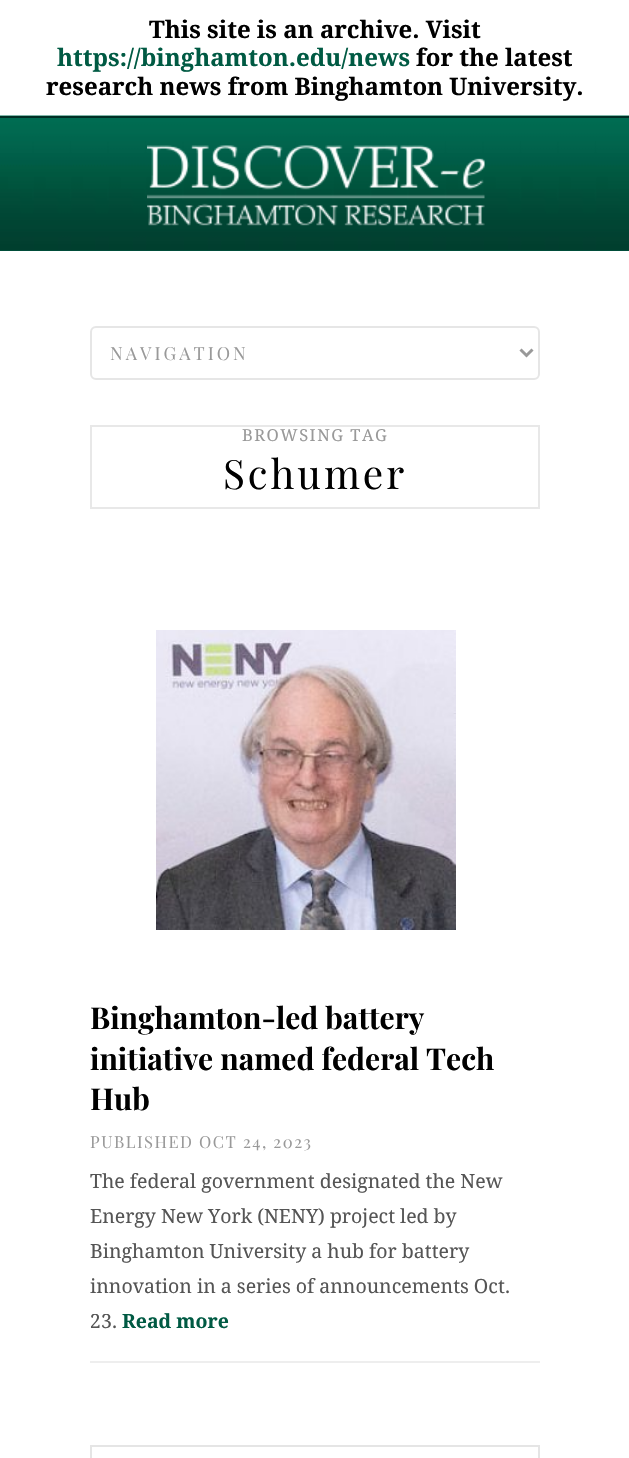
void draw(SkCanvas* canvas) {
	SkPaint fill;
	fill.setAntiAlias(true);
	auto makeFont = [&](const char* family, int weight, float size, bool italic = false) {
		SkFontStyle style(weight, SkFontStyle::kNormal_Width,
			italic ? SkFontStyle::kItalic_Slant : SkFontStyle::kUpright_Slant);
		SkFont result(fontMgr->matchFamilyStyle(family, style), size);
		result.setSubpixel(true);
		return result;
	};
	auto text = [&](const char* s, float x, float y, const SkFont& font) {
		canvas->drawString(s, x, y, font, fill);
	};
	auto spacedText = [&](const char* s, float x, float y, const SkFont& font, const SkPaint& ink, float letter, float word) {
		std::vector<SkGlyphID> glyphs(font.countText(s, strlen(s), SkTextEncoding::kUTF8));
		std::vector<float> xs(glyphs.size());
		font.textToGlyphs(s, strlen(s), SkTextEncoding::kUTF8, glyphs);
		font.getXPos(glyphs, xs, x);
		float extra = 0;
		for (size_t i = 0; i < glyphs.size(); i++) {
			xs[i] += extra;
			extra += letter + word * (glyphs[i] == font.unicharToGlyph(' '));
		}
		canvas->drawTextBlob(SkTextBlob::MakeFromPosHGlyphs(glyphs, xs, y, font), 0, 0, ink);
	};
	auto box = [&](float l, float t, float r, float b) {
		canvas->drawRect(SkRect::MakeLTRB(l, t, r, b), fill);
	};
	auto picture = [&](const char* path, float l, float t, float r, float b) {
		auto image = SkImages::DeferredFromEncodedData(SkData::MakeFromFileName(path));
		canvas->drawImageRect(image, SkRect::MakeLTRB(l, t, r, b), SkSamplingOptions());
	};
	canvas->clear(0xFFFFFFFF);
	fill.setColor(0xFF005A43);
	box(0, 250, 629, 251);
	picture("image0.png", 0, 115, 629, 251);
	fill.setColor(0xFF003025);
	box(0, 116, 629, 118);
	picture("image1.png", 147, 145, 485, 226);
	fill.setStyle(SkPaint::kStroke_Style);
	fill.setStrokeWidth(2);
	fill.setColor(0xFFE6E6E6);
	canvas->drawRoundRect(SkRect::MakeLTRB(91, 327, 539, 379), 5, 5, fill);
	fill.setStrokeWidth(3);
	fill.setColor(0xFF999999);
	canvas->drawPath(SkPathBuilder().moveTo(520.5f, 349.5f).lineTo(526.5f, 355.5f).lineTo(532.5f, 349.5f).detach(), fill);
	fill.setStrokeWidth(2);
	fill.setColor(0xFFE8E8E8);
	canvas->drawRect(SkRect::MakeLTRB(91, 426, 539, 508), fill);
	fill.setStyle(SkPaint::kFill_Style);
	fill.setColor(0xFFEEEEEE);
	box(90, 1361, 540, 1363);
	picture("image2.png", 156, 630, 456, 930);
	fill.setStyle(SkPaint::kStroke_Style);
	fill.setColor(0xFFE5E5E5);
	canvas->drawRect(SkRect::MakeLTRB(91, 1446, 539, 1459), fill);
	auto font1 = makeFont("Droid Serif", 700, 24);
	fill.setStyle(SkPaint::kFill_Style);
	fill.setColor(0xFF000000);
	text("This site is an archive. Visit", 149, 38, font1);
	fill.setColor(0xFF005A43);
	text("https://binghamton.edu/news", 57, 66, font1);
	fill.setColor(0xFF000000);
	text("for the latest", 416, 66, font1);
	text("research news from Binghamton University.", 46, 95, font1);
	auto font2 = makeFont("Playfair Display", 400, 18);
	fill.setColor(0xFF999999);
	spacedText("NAVIGATION", 110, 360, font2, fill, 3, 0);
	auto font3 = makeFont("Droid Serif", 400, 16.5f);
	spacedText("BROWSING TAG", 242, 441, font3, fill, 1.5f, 0);
	auto font4 = makeFont("Playfair Display", 400, 40.5f);
	fill.setColor(0xFF000000);
	spacedText("Schumer", 223, 489, font4, fill, 3, 0);
	auto font5 = makeFont("Playfair Display", 700, 30);
	text("Binghamton-led battery", 90, 1029, font5);
	text("initiative named federal Tech", 90, 1070, font5);
	text("Hub", 90, 1110, font5);
	auto font6 = makeFont("Playfair Display", 400, 16.5f);
	fill.setColor(0xFF999999);
	spacedText("PUBLISHED OCT 24, 2023", 90, 1148, font6, fill, 1.5f, 0);
	auto font7 = makeFont("Droid Serif", 400, 19.5f);
	fill.setColor(0xFF555555);
	text("The federal government designated the New", 90, 1188, font7);
	text("Energy New York (NENY) project led by", 90, 1223, font7);
	text("Binghamton University a hub for battery", 90, 1258, font7);
	text("innovation in a series of announcements Oct.", 90, 1293, font7);
	text("23.", 90, 1328, font7);
	auto font8 = makeFont("Droid Serif", 700, 19.5f);
	fill.setColor(0xFF005A43);
	text("Read more", 122, 1328, font8);
}
